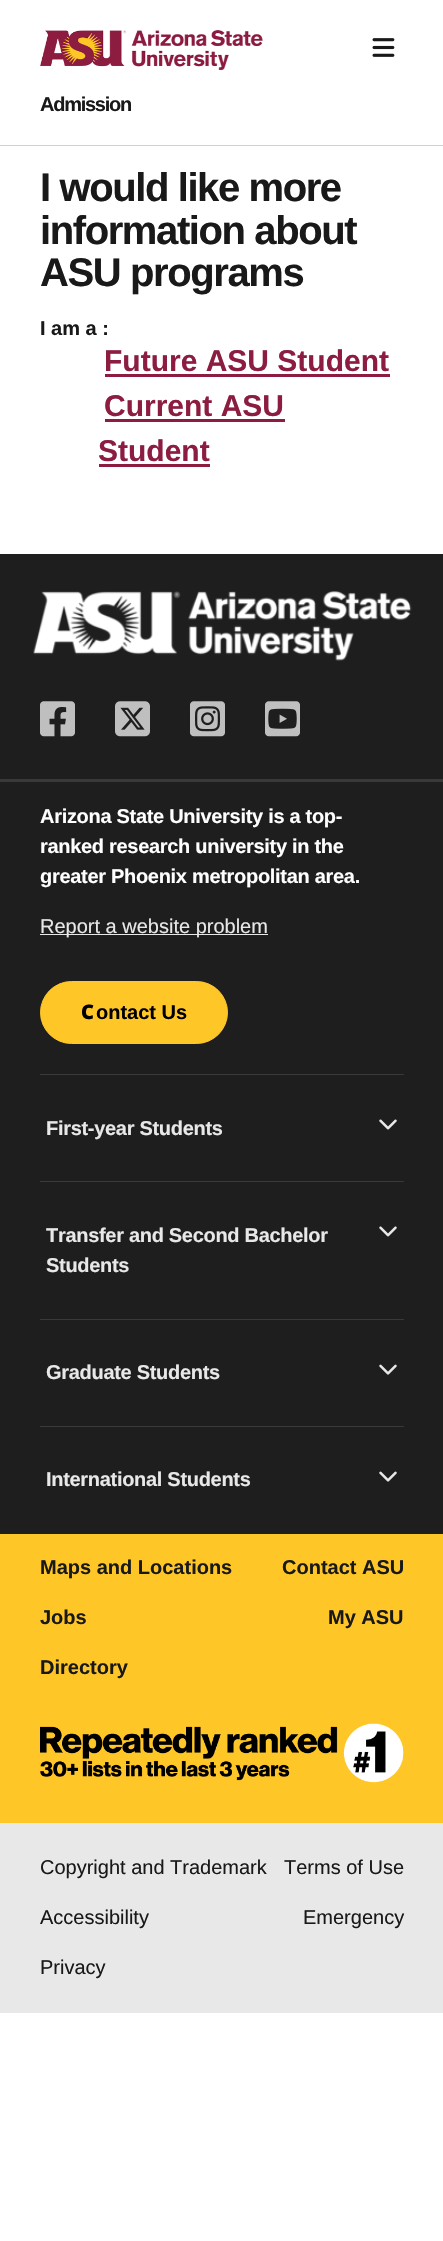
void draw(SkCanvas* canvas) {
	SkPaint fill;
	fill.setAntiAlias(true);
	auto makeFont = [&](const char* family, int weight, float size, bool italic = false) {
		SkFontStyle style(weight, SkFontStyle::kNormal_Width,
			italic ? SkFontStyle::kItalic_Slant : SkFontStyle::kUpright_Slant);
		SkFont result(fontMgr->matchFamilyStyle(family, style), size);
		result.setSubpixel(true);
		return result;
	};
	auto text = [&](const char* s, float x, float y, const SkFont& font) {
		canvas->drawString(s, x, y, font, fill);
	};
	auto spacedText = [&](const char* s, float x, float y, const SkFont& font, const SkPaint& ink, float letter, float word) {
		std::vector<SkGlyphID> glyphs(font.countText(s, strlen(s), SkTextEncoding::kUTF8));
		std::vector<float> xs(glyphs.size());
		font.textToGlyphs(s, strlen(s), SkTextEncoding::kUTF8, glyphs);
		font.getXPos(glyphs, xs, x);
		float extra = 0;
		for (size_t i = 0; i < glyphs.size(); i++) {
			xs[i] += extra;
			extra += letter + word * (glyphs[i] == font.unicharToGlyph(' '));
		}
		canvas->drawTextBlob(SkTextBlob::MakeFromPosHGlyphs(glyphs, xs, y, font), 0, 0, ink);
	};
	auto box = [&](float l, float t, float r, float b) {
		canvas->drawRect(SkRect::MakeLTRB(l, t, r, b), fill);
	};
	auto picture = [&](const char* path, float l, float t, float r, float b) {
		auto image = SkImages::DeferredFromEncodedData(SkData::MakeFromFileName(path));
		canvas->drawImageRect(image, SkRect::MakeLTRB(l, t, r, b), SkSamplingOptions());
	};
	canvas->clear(0xFFFFFFFF);
	fill.setColor(0xFFD0D0D0);
	box(0, 145, 443, 146);
	picture("image0.png", 40, 30, 263, 70);
	picture("image1.png", 372, 38, 395, 57);
	fill.setColor(0xFF8C1D40);
	box(105, 374, 390, 377);
	box(105, 419, 285, 422);
	box(99, 464, 210, 467);
	fill.setColor(0xFF1E1E1E);
	box(0, 554, 443, 779);
	picture("image2.png", 33, 591, 412, 661);
	picture("image3.png", 40, 701, 75, 737);
	picture("image4.png", 115, 701, 150, 737);
	picture("image5.png", 190, 701, 225, 737);
	picture("image6.png", 265, 701, 300, 737);
	box(0, 782, 443, 1534);
	fill.setColor(0xFF393939);
	box(0, 779, 443, 782);
	fill.setColor(0xFFE8E8E8);
	box(40, 934, 268, 935);
	fill.setColor(0xFFFFC627);
	canvas->drawRoundRect(SkRect::MakeLTRB(40.5f, 981.5f, 227.5f, 1043.5f), 31, 31, fill);
	fill.setStyle(SkPaint::kStroke_Style);
	fill.setStrokeWidth(1);
	canvas->drawRoundRect(SkRect::MakeLTRB(40.5f, 981.5f, 227.5f, 1043.5f), 31, 31, fill);
	fill.setStyle(SkPaint::kFill_Style);
	fill.setColor(0xFF393939);
	box(40, 1074, 404, 1075);
	picture("image7.png", 379, 1119, 397, 1130);
	box(40, 1181, 404, 1182);
	picture("image8.png", 379, 1226, 397, 1237);
	box(40, 1319, 404, 1320);
	picture("image9.png", 379, 1364, 397, 1375);
	box(40, 1426, 404, 1427);
	picture("image10.png", 379, 1471, 397, 1482);
	fill.setColor(0xFFFFC627);
	box(0, 1534, 443, 1823);
	picture("image11.png", 40, 1723, 404, 1783);
	fill.setColor(0xFFE8E8E8);
	box(0, 1823, 443, 2013);
	auto font1 = makeFont("Liberation Sans", 700, 20);
	fill.setColor(0xFF191919);
	spacedText("Admission", 40, 111, font1, fill, -1.25f, 0);
	auto font2 = makeFont("Liberation Sans", 700, 40);
	spacedText("I would like more", 40, 201, font2, fill, -1.4f, 0);
	spacedText("information about", 40, 244, font2, fill, -1.4f, 0);
	spacedText("ASU programs", 40, 286, font2, fill, -1.4f, 0);
	text("I am a :", 40, 335, font1);
	auto font3 = makeFont("Liberation Sans", 700, 30);
	fill.setColor(0xFF8C1D40);
	text("Future ASU Student", 104, 371, font3);
	text("Current ASU", 104, 416, font3);
	text("Student", 98, 461, font3);
	fill.setColor(0xFFFFFFFF);
	spacedText("Arizona State University is a top-", 40, 823, font1, fill, -0.3f, 0);
	spacedText("ranked research university in the", 40, 853, font1, fill, -0.3f, 0);
	spacedText("greater Phoenix metropolitan area.", 40, 883, font1, fill, -0.3f, 0);
	auto font4 = makeFont("Liberation Sans", 400, 20);
	fill.setColor(0xFFE8E8E8);
	text("Report a website problem", 40, 933, font4);
	auto font5 = makeFont("Noto Sans", 900, 20);
	fill.setColor(0xFF000000);
	text("C", 81, 1019, font5);
	text("ontact Us", 96, 1019, font1);
	fill.setColor(0xFFE8E8E8);
	spacedText("First-year Students", 46, 1135, font1, fill, -0.3f, 0);
	spacedText("Transfer and Second Bachelor", 46, 1242, font1, fill, -0.3f, 0);
	spacedText("Students", 46, 1272, font1, fill, -0.3f, 0);
	spacedText("Graduate Students", 46, 1379, font1, fill, -0.3f, 0);
	spacedText("International Students", 46, 1486, font1, fill, -0.3f, 0);
	fill.setColor(0xFF191919);
	text("Maps and Locations", 40, 1574, font1);
	text("Contact ASU", 282, 1574, font1);
	text("Jobs", 40, 1624, font1);
	text("My ASU", 328, 1624, font1);
	text("Directory", 40, 1674, font1);
	text("Copyright and Trademark", 40, 1874, font4);
	text("Terms of Use", 284, 1874, font4);
	text("Accessibility", 40, 1924, font4);
	text("Emergency", 303, 1924, font4);
	text("Privacy", 40, 1974, font4);
}
